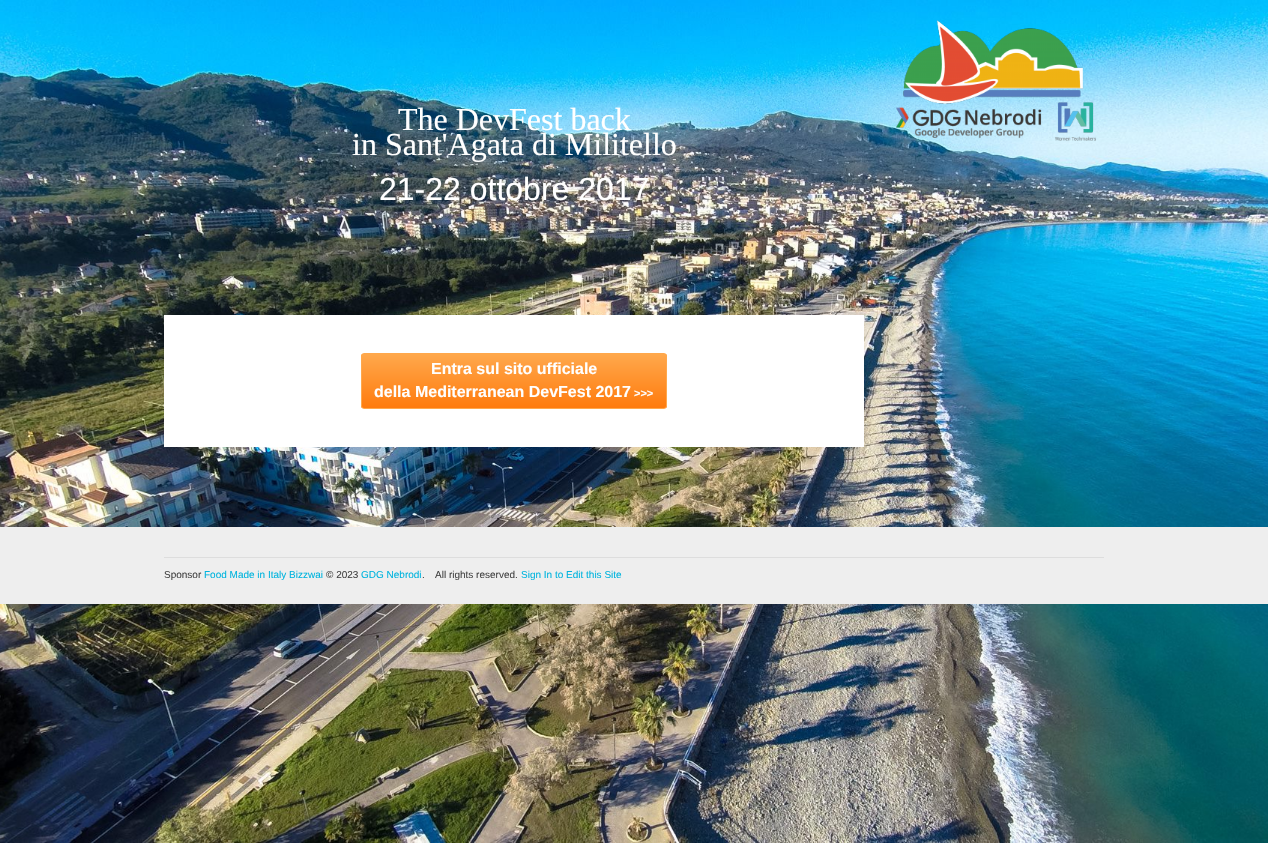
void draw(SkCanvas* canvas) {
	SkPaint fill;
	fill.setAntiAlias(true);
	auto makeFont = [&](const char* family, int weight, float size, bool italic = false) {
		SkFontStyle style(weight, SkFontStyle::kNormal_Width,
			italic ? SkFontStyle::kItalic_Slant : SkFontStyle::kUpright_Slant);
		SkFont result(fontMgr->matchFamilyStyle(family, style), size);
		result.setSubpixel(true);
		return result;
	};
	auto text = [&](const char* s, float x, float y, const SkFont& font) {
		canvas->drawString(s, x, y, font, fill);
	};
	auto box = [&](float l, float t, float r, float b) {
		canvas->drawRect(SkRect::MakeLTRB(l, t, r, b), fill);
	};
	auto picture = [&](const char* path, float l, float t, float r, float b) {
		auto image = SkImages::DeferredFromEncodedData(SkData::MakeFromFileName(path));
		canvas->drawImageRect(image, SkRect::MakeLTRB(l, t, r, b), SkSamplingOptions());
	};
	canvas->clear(0xFFFFFFFF);
	picture("image0.png", 0, 0, 1268, 843);
	picture("image1.png", 896, 20, 1096, 141);
	fill.setColor(0xFFFFFFFF);
	box(164, 315, 864, 447);
	canvas->save();
	canvas->clipPath(SkPathBuilder().moveTo(364, 353).lineTo(664, 353).cubicTo(665.5f, 353, 667, 354.5f, 667, 356).lineTo(667, 406).cubicTo(667, 407.5f, 665.5f, 409, 664, 409).lineTo(364, 409).cubicTo(362.5f, 409, 361, 407.5f, 361, 406).lineTo(361, 356).cubicTo(361, 354.5f, 362.5f, 353, 364, 353).close().detach(), true);
	{
		const SkColor colors[] = {0xFFFFA84C, 0xFFFF7B0D};
		const float stops[] = {0, 1};
		const SkPoint ends[] = {{514, 354}, {514, 408}};
		fill.setShader(SkGradientShader::MakeLinear(ends, colors, stops, 2, SkTileMode::kClamp));
		fill.setAlpha(255);
	}
	box(361, 354, 667, 408);
	canvas->restore();
	fill.setStyle(SkPaint::kStroke_Style);
	fill.setStrokeWidth(1);
	fill.setShader(nullptr);
	fill.setColor(0xFFFFA84C);
	canvas->drawRoundRect(SkRect::MakeLTRB(361.5f, 353.5f, 666.5f, 408.5f), 2.5f, 2.5f, fill);
	fill.setStyle(SkPaint::kFill_Style);
	fill.setColor(0xFFEEEEEE);
	box(0, 527, 1268, 604);
	fill.setColor(0xFFDDDDDD);
	box(164, 557, 1104, 558);
	auto font1 = makeFont("Liberation Serif", 400, 32);
	fill.setColor(0xFFFFFFFF);
	text("The DevFest back", 398, 130, font1);
	text("in Sant'Agata di Militello", 352, 155, font1);
	auto font2 = makeFont("Liberation Sans", 400, 32);
	text("21-22 ottobre 2017", 379, 200, font2);
	auto font3 = makeFont("Liberation Sans", 700, 16);
	text("Entra sul sito ufficiale", 431, 374, font3);
	text("della Mediterranean DevFest 2017", 374, 397, font3);
	auto font4 = makeFont("Liberation Sans", 700, 11);
	text(">>>", 634, 397, font4);
	auto font5 = makeFont("Liberation Sans", 400, 10);
	fill.setColor(0xFF444444);
	text("Sponsor", 164, 578, font5);
	fill.setColor(0xFF00B4DE);
	text("Food Made in Italy Bizzwai", 204, 578, font5);
	fill.setColor(0xFF444444);
	text("© 2023", 326, 578, font5);
	fill.setColor(0xFF00B4DE);
	text("GDG Nebrodi", 361, 578, font5);
	fill.setColor(0xFF444444);
	text(".", 422, 578, font5);
	text("All rights reserved.", 435, 578, font5);
	fill.setColor(0xFF00B4DE);
	text("Sign In to Edit this Site", 521, 578, font5);
}
